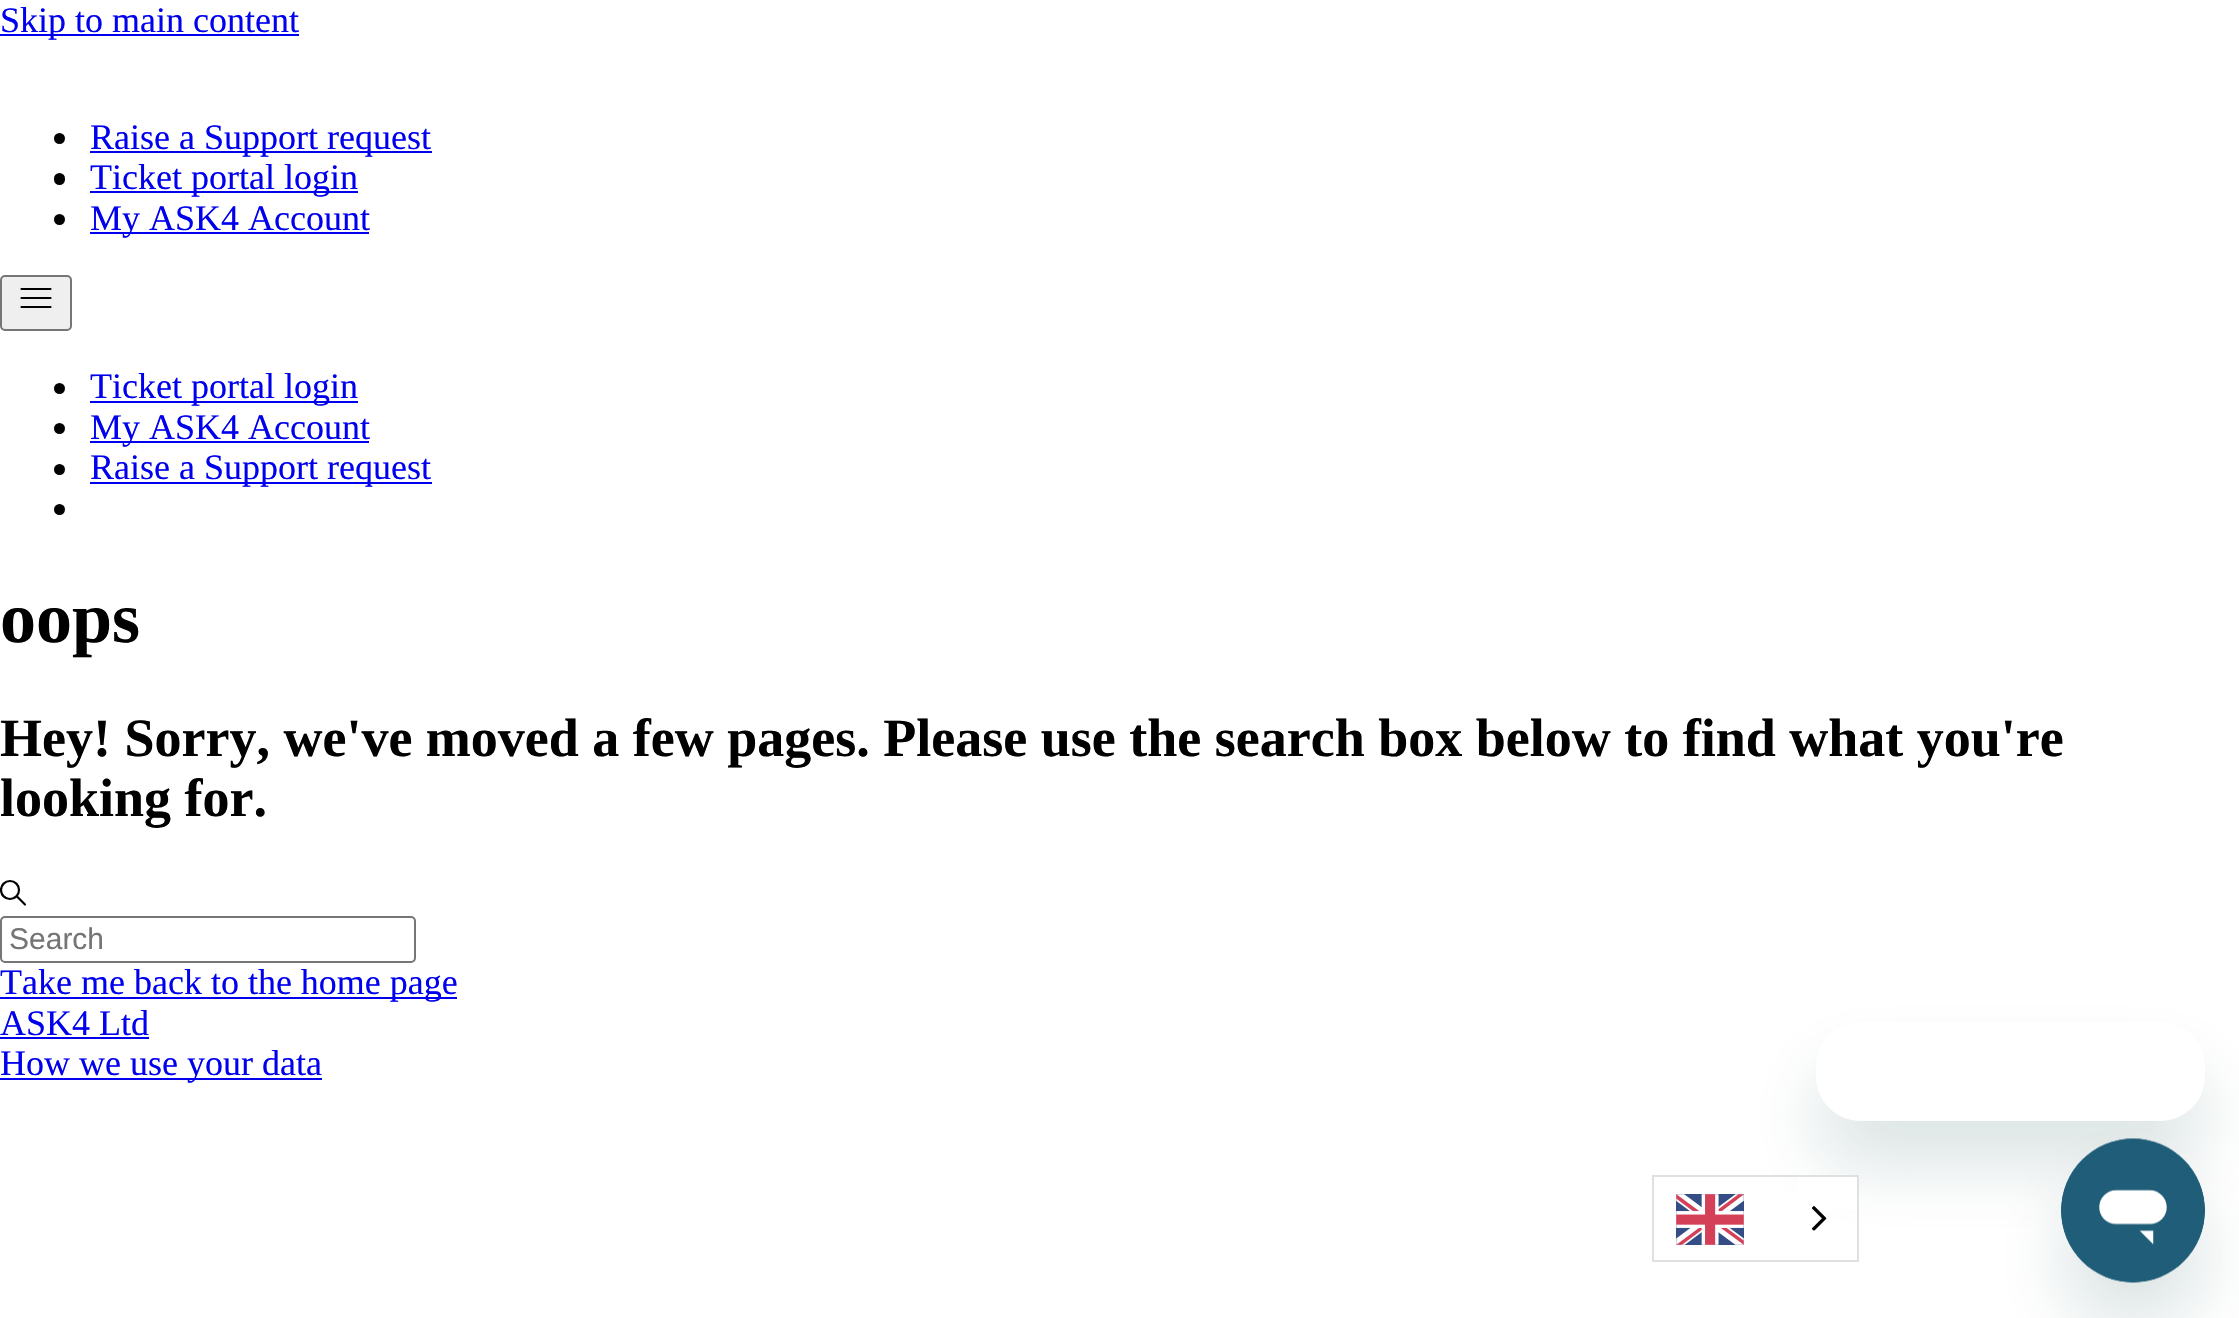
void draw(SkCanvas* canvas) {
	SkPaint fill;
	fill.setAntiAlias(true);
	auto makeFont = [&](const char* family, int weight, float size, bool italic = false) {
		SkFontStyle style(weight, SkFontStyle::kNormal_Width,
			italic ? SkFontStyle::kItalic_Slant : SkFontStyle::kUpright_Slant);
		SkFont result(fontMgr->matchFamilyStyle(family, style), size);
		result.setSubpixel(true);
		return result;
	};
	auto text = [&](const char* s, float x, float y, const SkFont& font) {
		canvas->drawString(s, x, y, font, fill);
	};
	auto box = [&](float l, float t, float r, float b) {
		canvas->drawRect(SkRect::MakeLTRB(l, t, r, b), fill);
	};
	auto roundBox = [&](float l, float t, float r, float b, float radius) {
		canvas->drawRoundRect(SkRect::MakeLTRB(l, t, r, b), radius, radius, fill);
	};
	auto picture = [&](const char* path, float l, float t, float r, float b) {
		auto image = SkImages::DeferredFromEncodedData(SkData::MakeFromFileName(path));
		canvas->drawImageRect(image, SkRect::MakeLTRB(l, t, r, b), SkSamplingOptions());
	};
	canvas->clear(0xFFFFFFFF);
	fill.setColor(0xFF0000EE);
	box(0, 34, 299, 36);
	fill.setColor(0xFF000000);
	canvas->drawCircle(59.5f, 138.5f, 5.5f, fill);
	fill.setColor(0xFF0000EE);
	box(90, 151, 432, 153);
	fill.setColor(0xFF000000);
	roundBox(54, 173, 65, 185, 5.5f);
	fill.setColor(0xFF0000EE);
	box(90, 191, 358, 193);
	fill.setColor(0xFF000000);
	canvas->drawCircle(59.5f, 219.5f, 5.5f, fill);
	fill.setColor(0xFF0000EE);
	box(90, 232, 369, 234);
	fill.setColor(0xFFEFEFEF);
	canvas->drawRoundRect(SkRect::MakeLTRB(1, 276, 71, 330), 4, 4, fill);
	fill.setStyle(SkPaint::kStroke_Style);
	fill.setStrokeWidth(2);
	fill.setColor(0xFF767676);
	canvas->drawRoundRect(SkRect::MakeLTRB(1, 276, 71, 330), 4, 4, fill);
	fill.setStrokeWidth(2.2f);
	fill.setStrokeCap(SkPaint::kRound_Cap);
	fill.setColor(0xFF000000);
	canvas->drawPath(SkPathBuilder().moveTo(21.5f, 289).lineTo(50.5f, 289).moveTo(21.5f, 298).lineTo(50.5f, 298).moveTo(21.5f, 307).lineTo(50.5f, 307).detach(), fill);
	fill.setStyle(SkPaint::kFill_Style);
	canvas->drawCircle(59.5f, 388.5f, 5.5f, fill);
	fill.setColor(0xFF0000EE);
	box(90, 401, 358, 403);
	fill.setColor(0xFF000000);
	canvas->drawCircle(59.5f, 428.5f, 5.5f, fill);
	fill.setColor(0xFF0000EE);
	box(90, 441, 369, 443);
	fill.setColor(0xFF000000);
	canvas->drawCircle(59.5f, 469.5f, 5.5f, fill);
	fill.setColor(0xFF0000EE);
	box(90, 482, 432, 484);
	fill.setColor(0xFF000000);
	canvas->drawCircle(59.5f, 509.5f, 5.5f, fill);
	fill.setStyle(SkPaint::kStroke_Style);
	fill.setStrokeCap(SkPaint::kButt_Cap);
	canvas->drawCircle(10, 890, 9, fill);
	fill.setStrokeCap(SkPaint::kRound_Cap);
	canvas->drawPath(SkPathBuilder().moveTo(25, 904.5f).lineTo(17, 896.5f).detach(), fill);
	fill.setStrokeWidth(2);
	fill.setStrokeCap(SkPaint::kButt_Cap);
	fill.setColor(0xFF767676);
	canvas->drawRoundRect(SkRect::MakeLTRB(1, 917, 415, 962), 4, 4, fill);
	fill.setStyle(SkPaint::kFill_Style);
	fill.setColor(0xFF0000EE);
	box(0, 997, 457, 999);
	box(0, 1037, 149, 1039);
	box(0, 1078, 322, 1080);
	canvas->save();
	canvas->clipPath(SkPathBuilder(SkPathFillType::kEvenOdd).moveTo(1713, 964).lineTo(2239, 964).lineTo(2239, 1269).lineTo(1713, 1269).close().moveTo(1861, 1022).lineTo(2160, 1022).cubicTo(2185, 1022, 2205, 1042, 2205, 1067).lineTo(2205, 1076).cubicTo(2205, 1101, 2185, 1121, 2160, 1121).lineTo(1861, 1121).cubicTo(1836, 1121, 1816, 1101, 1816, 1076).lineTo(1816, 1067).cubicTo(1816, 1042, 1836, 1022, 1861, 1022).close().detach(), true);
	fill.setColor(0x2617494D);
	fill.setMaskFilter(SkMaskFilter::MakeBlur(kNormal_SkBlurStyle, 34));
	canvas->drawRoundRect(SkRect::MakeLTRB(1816, 1067, 2205, 1166), 45, 45, fill);
	fill.setMaskFilter(nullptr);
	canvas->restore();
	fill.setMaskFilter(SkMaskFilter::MakeBlur(kNormal_SkBlurStyle, 34));
	canvas->drawRoundRect(SkRect::MakeLTRB(2061, 1184, 2205, 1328), 72, 72, fill);
	fill.setMaskFilter(nullptr);
	picture("image0.png", 2061, 1138, 2205, 1283);
	fill.setColor(0xFFFFFFFF);
	box(1797, 1177, 1857, 1210);
	fill.setStyle(SkPaint::kStroke_Style);
	fill.setColor(0xFFE0E0E0);
	canvas->drawRect(SkRect::MakeLTRB(1653, 1176, 1858, 1261), fill);
	picture("image1.png", 1676, 1194, 1744, 1245);
	picture("image2.png", 1811, 1206, 1827, 1231);
	auto font1 = makeFont("Liberation Serif", 400, 36);
	fill.setStyle(SkPaint::kFill_Style);
	fill.setColor(0xFF0000EE);
	text("Skip to main content", 0, 32, font1);
	text("Raise a Support request", 90, 149, font1);
	text("Ticket portal login", 90, 189, font1);
	text("My ASK4 Account", 90, 230, font1);
	text("Ticket portal login", 90, 398, font1);
	text("My ASK4 Account", 90, 439, font1);
	text("Raise a Support request", 90, 479, font1);
	auto font2 = makeFont("Liberation Serif", 700, 72);
	fill.setColor(0xFF000000);
	text("oops", 0, 642, font2);
	auto font3 = makeFont("Liberation Serif", 700, 54);
	text("Hey! Sorry, we've moved a few pages. Please use the search box below to find what you're", 0, 756, font3);
	text("looking for.", 0, 816, font3);
	auto font4 = makeFont("Liberation Sans", 400, 30);
	fill.setColor(0xFF757575);
	text("Search", 9, 949, font4);
	fill.setColor(0xFF0000EE);
	text("Take me back to the home page", 0, 994, font1);
	text("ASK4 Ltd", 0, 1035, font1);
	text("How we use your data", 0, 1075, font1);
}
